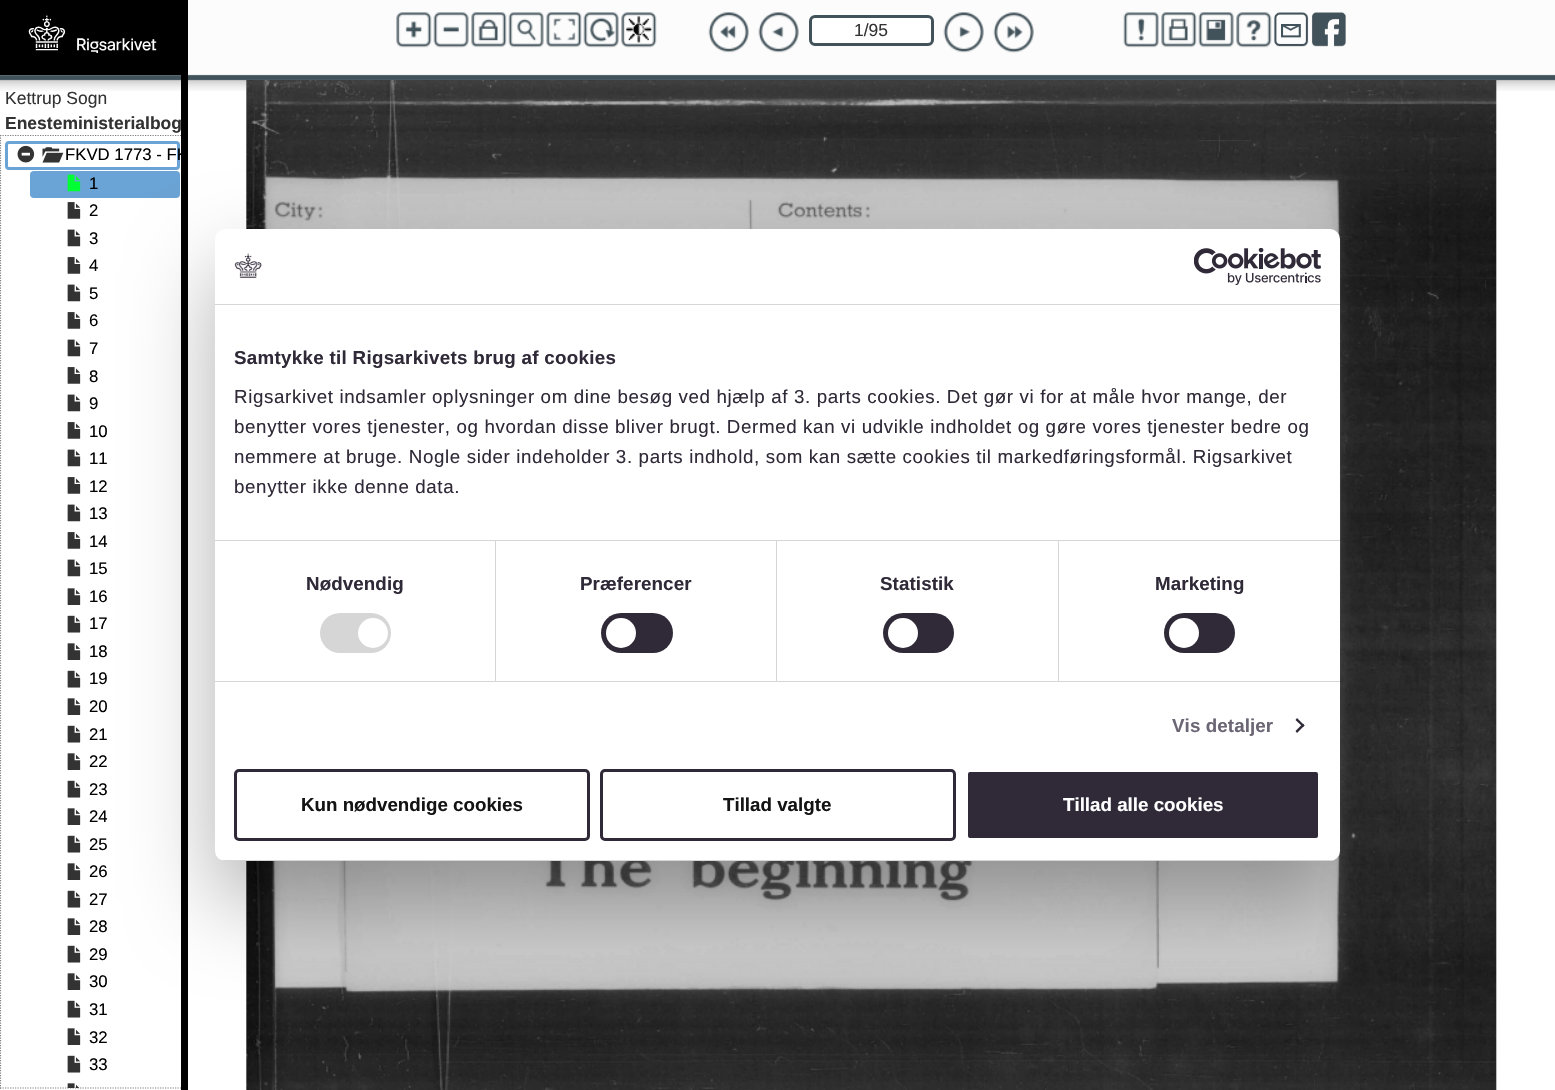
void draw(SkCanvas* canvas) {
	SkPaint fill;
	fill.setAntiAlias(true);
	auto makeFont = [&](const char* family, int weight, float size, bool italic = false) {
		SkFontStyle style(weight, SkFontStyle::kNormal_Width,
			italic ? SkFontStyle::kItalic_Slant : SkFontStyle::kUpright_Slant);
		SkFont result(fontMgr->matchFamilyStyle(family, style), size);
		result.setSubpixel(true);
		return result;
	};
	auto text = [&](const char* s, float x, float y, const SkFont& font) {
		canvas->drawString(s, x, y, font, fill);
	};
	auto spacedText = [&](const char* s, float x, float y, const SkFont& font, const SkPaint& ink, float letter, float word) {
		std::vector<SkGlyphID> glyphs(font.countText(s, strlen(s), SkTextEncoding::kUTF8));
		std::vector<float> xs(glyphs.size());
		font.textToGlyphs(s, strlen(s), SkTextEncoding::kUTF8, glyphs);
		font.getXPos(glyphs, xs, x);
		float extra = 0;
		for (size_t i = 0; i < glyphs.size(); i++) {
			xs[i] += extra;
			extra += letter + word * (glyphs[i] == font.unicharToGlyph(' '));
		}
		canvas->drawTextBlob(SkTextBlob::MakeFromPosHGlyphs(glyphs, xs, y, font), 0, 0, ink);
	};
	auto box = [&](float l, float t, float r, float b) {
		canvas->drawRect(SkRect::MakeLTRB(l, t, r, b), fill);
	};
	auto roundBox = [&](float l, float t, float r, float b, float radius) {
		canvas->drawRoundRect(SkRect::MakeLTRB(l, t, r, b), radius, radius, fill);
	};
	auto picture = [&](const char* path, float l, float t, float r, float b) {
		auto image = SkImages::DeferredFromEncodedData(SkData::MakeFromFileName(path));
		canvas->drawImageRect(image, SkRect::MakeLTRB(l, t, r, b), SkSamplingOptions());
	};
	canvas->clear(0xFFFFFFFF);
	picture("image0.png", 188, 0, 1555, 91);
	picture("image1.png", 396, 12, 432, 48);
	picture("image2.png", 433, 12, 469, 48);
	picture("image3.png", 471, 12, 507, 48);
	picture("image4.png", 508, 12, 544, 48);
	picture("image5.png", 546, 12, 582, 48);
	picture("image6.png", 583, 12, 619, 48);
	picture("image7.png", 621, 12, 657, 48);
	picture("image8.png", 708, 12, 749, 53);
	picture("image9.png", 758, 12, 799, 53);
	fill.setColor(0xFFFFFFFF);
	canvas->drawRoundRect(SkRect::MakeLTRB(810.5f, 16.5f, 932.5f, 44.5f), 4.5f, 4.5f, fill);
	fill.setStyle(SkPaint::kStroke_Style);
	fill.setStrokeWidth(3);
	fill.setColor(0xFF42525A);
	canvas->drawRoundRect(SkRect::MakeLTRB(810.5f, 16.5f, 932.5f, 44.5f), 4.5f, 4.5f, fill);
	picture("image10.png", 943, 12, 984, 53);
	picture("image11.png", 993, 12, 1034, 53);
	picture("image12.png", 1123, 12, 1159, 48);
	picture("image13.png", 1161, 12, 1197, 48);
	picture("image14.png", 1198, 12, 1234, 48);
	picture("image15.png", 1236, 12, 1272, 48);
	picture("image16.png", 1273, 12, 1309, 47);
	picture("image17.png", 1311, 12, 1346, 47);
	picture("image18.png", 246, 80, 1497, 1090);
	picture("image19.png", 0, 75, 181, 91);
	fill.setStyle(SkPaint::kFill_Style);
	fill.setColor(0xFF000000);
	box(0, 0, 181, 75);
	picture("image20.png", 28, 15, 157, 53);
	fill.setStyle(SkPaint::kStroke_Style);
	fill.setStrokeWidth(1.2f);
	fill.setColor(0xFF808080);
	fill.setPathEffect(SkDashPathEffect::Make({{1.25f, 1.25f}}, 0));
	canvas->drawPath(SkPathBuilder().moveTo(0, 135.5f).lineTo(185, 135.5f).detach(), fill);
	fill.setPathEffect(nullptr);
	fill.setPathEffect(SkDashPathEffect::Make({{1.25f, 1.25f}}, 0));
	canvas->drawPath(SkPathBuilder().moveTo(0, 1088).lineTo(185, 1088).detach(), fill);
	fill.setPathEffect(nullptr);
	fill.setStyle(SkPaint::kFill_Style);
	fill.setColor(0xFF000000);
	box(181, 0, 188, 1090);
	fill.setStyle(SkPaint::kStroke_Style);
	fill.setColor(0xFF808080);
	fill.setPathEffect(SkDashPathEffect::Make({{1.25f, 1.25f}}, 0));
	canvas->drawPath(SkPathBuilder().moveTo(0.5f, 135).lineTo(0.5f, 1089).detach(), fill);
	fill.setPathEffect(nullptr);
	fill.setStrokeWidth(3);
	fill.setColor(0xFF6AA3D5);
	canvas->drawRoundRect(SkRect::MakeLTRB(6.5f, 142.5f, 178.5f, 168.5f), 2.5f, 2.5f, fill);
	picture("image21.png", 17, 145, 35, 163);
	picture("image22.png", 42, 147, 64, 163);
	fill.setStyle(SkPaint::kFill_Style);
	roundBox(30, 171, 180, 198, 4);
	picture("image23.png", 67, 174, 81, 192);
	picture("image24.png", 67, 202, 81, 219);
	picture("image25.png", 67, 229, 81, 247);
	picture("image24.png", 67, 257, 81, 274);
	picture("image25.png", 67, 284, 81, 302);
	picture("image24.png", 67, 312, 81, 329);
	picture("image25.png", 67, 339, 81, 357);
	picture("image24.png", 67, 367, 81, 384);
	picture("image25.png", 67, 394, 81, 412);
	picture("image24.png", 67, 422, 81, 439);
	picture("image25.png", 67, 449, 81, 467);
	picture("image24.png", 67, 477, 81, 494);
	picture("image25.png", 67, 504, 81, 522);
	picture("image24.png", 67, 532, 81, 549);
	picture("image25.png", 67, 559, 81, 577);
	picture("image26.png", 67, 588, 81, 605);
	picture("image27.png", 67, 615, 81, 633);
	picture("image26.png", 67, 643, 81, 660);
	picture("image27.png", 67, 670, 81, 688);
	picture("image26.png", 67, 698, 81, 715);
	picture("image27.png", 67, 725, 81, 743);
	picture("image26.png", 67, 753, 81, 770);
	picture("image27.png", 67, 780, 81, 798);
	picture("image26.png", 67, 808, 81, 825);
	picture("image27.png", 67, 835, 81, 853);
	picture("image26.png", 67, 863, 81, 880);
	picture("image27.png", 67, 890, 81, 908);
	picture("image26.png", 67, 918, 81, 935);
	picture("image27.png", 67, 945, 81, 963);
	picture("image26.png", 67, 973, 81, 990);
	picture("image27.png", 67, 1000, 81, 1018);
	picture("image26.png", 67, 1028, 81, 1045);
	picture("image27.png", 67, 1055, 81, 1073);
	picture("image28.png", 67, 1083, 80, 1088);
	fill.setColor(0x4D000000);
	fill.setMaskFilter(SkMaskFilter::MakeBlur(kNormal_SkBlurStyle, 42.5f));
	canvas->drawRoundRect(SkRect::MakeLTRB(215, 269, 1340, 901), 10, 10, fill);
	fill.setMaskFilter(nullptr);
	fill.setColor(0xFFFFFFFF);
	roundBox(215, 229, 1340, 861, 10);
	fill.setColor(0xFFD6D6D6);
	box(215, 304, 1340, 305);
	picture("image29.png", 234, 253, 262, 278);
	picture("image30.png", 1194, 248, 1321, 285);
	box(215, 540, 1340, 541);
	box(215, 681, 1340, 682);
	box(495, 541, 496, 681);
	roundBox(320, 613, 391, 653, 20);
	fill.setColor(0xFFFFFFFF);
	canvas->drawCircle(373, 633, 15, fill);
	fill.setColor(0xFFD6D6D6);
	box(776, 541, 777, 681);
	fill.setColor(0xFF302A38);
	roundBox(601, 613, 673, 653, 20);
	fill.setColor(0xFFFFFFFF);
	canvas->drawCircle(621, 633, 15, fill);
	fill.setColor(0xFFD6D6D6);
	box(1058, 541, 1059, 681);
	fill.setColor(0xFF302A38);
	roundBox(883, 613, 954, 653, 20);
	fill.setColor(0xFFFFFFFF);
	canvas->drawCircle(903, 633, 15, fill);
	fill.setColor(0xFF302A38);
	roundBox(1164, 613, 1235, 653, 20);
	fill.setColor(0xFFFFFFFF);
	canvas->drawCircle(1184, 633, 15, fill);
	fill.setColor(0xFF302A38);
	canvas->drawPath(SkPathBuilder().moveTo(1297, 718).lineTo(1304.5f, 725.5f).lineTo(1303, 727).lineTo(1295.5f, 720).close().detach(), fill);
	canvas->drawPath(SkPathBuilder().moveTo(1303, 723.5f).lineTo(1304.5f, 725.5f).lineTo(1297, 733).lineTo(1295.5f, 731).close().detach(), fill);
	canvas->save();
	canvas->clipPath(SkPathBuilder().moveTo(225, 229).lineTo(1330, 229).cubicTo(1335.5f, 229, 1340, 233.5f, 1340, 239).lineTo(1340, 851).cubicTo(1340, 856.5f, 1335.5f, 861, 1330, 861).lineTo(225, 861).cubicTo(219.5f, 861, 215, 856.5f, 215, 851).lineTo(215, 239).cubicTo(215, 233.5f, 219.5f, 229, 225, 229).close().detach(), true);
	fill.setColor(0xFFD6D6D6);
	box(215, 860, 1340, 861);
	canvas->restore();
	fill.setStyle(SkPaint::kStroke_Style);
	fill.setColor(0xFF302A38);
	canvas->drawRoundRect(SkRect::MakeLTRB(235.5f, 770.5f, 588.5f, 839.5f), 3.5f, 3.5f, fill);
	canvas->drawRoundRect(SkRect::MakeLTRB(601.5f, 770.5f, 954.5f, 839.5f), 3.5f, 3.5f, fill);
	fill.setStyle(SkPaint::kFill_Style);
	canvas->drawRoundRect(SkRect::MakeLTRB(966.5f, 770.5f, 1319.5f, 839.5f), 3.5f, 3.5f, fill);
	fill.setStyle(SkPaint::kStroke_Style);
	fill.setColor(0xFFFFFFFF);
	canvas->drawRoundRect(SkRect::MakeLTRB(966.5f, 770.5f, 1319.5f, 839.5f), 3.5f, 3.5f, fill);
	auto font1 = makeFont("Liberation Sans", 400, 17.5f);
	fill.setStyle(SkPaint::kFill_Style);
	fill.setColor(0xFF333333);
	text("1/95", 854, 36, font1);
	text("Kettrup Sogn", 5, 104, font1);
	auto font2 = makeFont("Liberation Sans", 700, 17.5f);
	text("Enesteministerialbog", 5, 129, font2);
	auto font3 = makeFont("Liberation Sans", 400, 16.75f);
	fill.setColor(0xFF000000);
	text("FKVD 1773 - FK", 65, 160, font3);
	text("1", 89, 189, font3);
	text("2", 89, 216, font3);
	text("3", 89, 244, font3);
	text("4", 89, 271, font3);
	text("5", 89, 299, font3);
	text("6", 89, 326, font3);
	text("7", 89, 354, font3);
	text("8", 89, 382, font3);
	text("9", 89, 409, font3);
	text("10", 89, 437, font3);
	text("11", 89, 464, font3);
	text("12", 89, 492, font3);
	text("13", 89, 519, font3);
	text("14", 89, 547, font3);
	text("15", 89, 574, font3);
	text("16", 89, 602, font3);
	text("17", 89, 629, font3);
	text("18", 89, 657, font3);
	text("19", 89, 684, font3);
	text("20", 89, 712, font3);
	text("21", 89, 740, font3);
	text("22", 89, 767, font3);
	text("23", 89, 795, font3);
	text("24", 89, 822, font3);
	text("25", 89, 850, font3);
	text("26", 89, 877, font3);
	text("27", 89, 905, font3);
	text("28", 89, 932, font3);
	text("29", 89, 960, font3);
	text("30", 89, 987, font3);
	text("31", 89, 1015, font3);
	text("32", 89, 1043, font3);
	text("33", 89, 1070, font3);
	auto font4 = makeFont("Liberation Sans", 700, 18.75f);
	fill.setColor(0xFF302A38);
	spacedText("Samtykke til Rigsarkivets brug af cookies", 234, 364, font4, fill, 0.3f, 0);
	auto font5 = makeFont("Liberation Sans", 400, 18.75f);
	spacedText("Rigsarkivet indsamler oplysninger om dine besøg ved hjælp af 3. parts cookies. Det gør vi for at måle hvor mange, der", 234, 403, font5, fill, 0.62f, 0);
	spacedText("benytter vores tjenester, og hvordan disse bliver brugt. Dermed kan vi udvikle indholdet og gøre vores tjenester bedre og", 234, 433, font5, fill, 0.62f, 0);
	spacedText("nemmere at bruge. Nogle sider indeholder 3. parts indhold, som kan sætte cookies til markedføringsformål. Rigsarkivet", 234, 463, font5, fill, 0.62f, 0);
	spacedText("benytter ikke denne data.", 234, 493, font5, fill, 0.62f, 0);
	spacedText("Nødvendig", 306, 590, font4, fill, 0.1f, 0);
	spacedText("Præferencer", 580, 590, font4, fill, 0.1f, 0);
	spacedText("Statistik", 880, 590, font4, fill, 0.1f, 0);
	spacedText("Marketing", 1155, 590, font4, fill, 0.1f, 0);
	fill.setColor(0xFF6B6574);
	spacedText("Vis detaljer", 1172, 732, font4, fill, 0.1f, 0);
	fill.setColor(0xFF141414);
	text("Kun nødvendige cookies", 301, 811, font4);
	text("Tillad valgte", 723, 811, font4);
	fill.setColor(0xFFFFFFFF);
	text("Tillad alle cookies", 1063, 811, font4);
}
